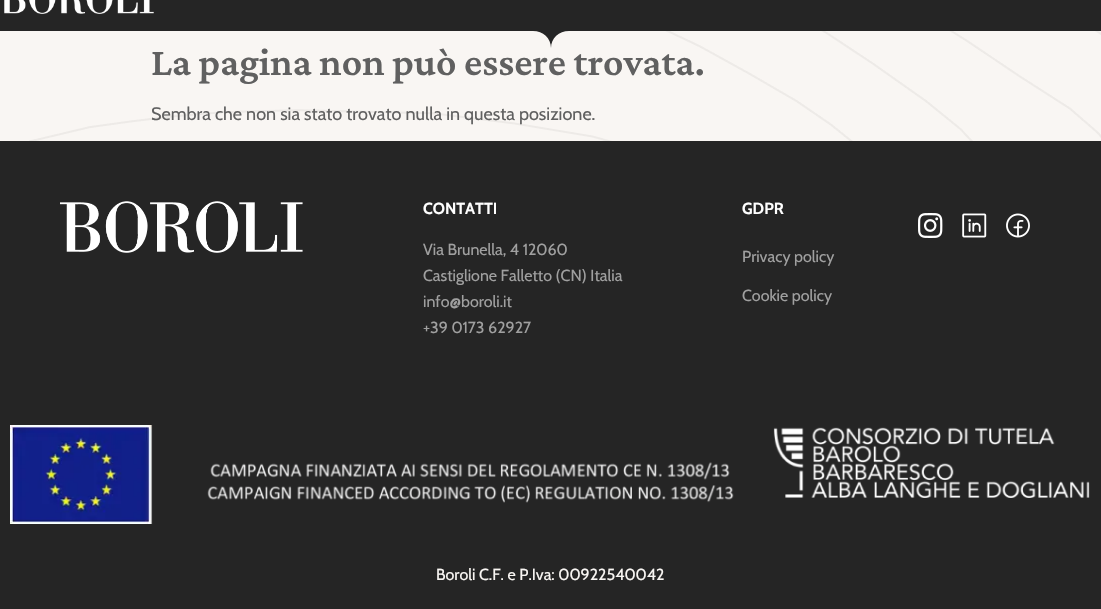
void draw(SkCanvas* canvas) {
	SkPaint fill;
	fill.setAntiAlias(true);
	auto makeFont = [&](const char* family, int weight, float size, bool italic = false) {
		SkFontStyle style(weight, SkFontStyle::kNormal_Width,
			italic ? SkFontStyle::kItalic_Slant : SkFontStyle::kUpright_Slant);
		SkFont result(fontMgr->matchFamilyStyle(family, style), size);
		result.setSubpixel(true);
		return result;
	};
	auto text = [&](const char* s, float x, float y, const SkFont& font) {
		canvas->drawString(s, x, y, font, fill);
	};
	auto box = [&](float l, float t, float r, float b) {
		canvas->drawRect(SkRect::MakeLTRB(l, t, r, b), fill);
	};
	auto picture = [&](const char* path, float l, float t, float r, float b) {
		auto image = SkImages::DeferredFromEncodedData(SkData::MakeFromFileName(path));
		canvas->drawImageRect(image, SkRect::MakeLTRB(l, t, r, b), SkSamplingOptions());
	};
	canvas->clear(0xFFF9F6F3);
	picture("image0.png", 29, 31, 1101, 141);
	fill.setColor(0xFF252525);
	box(0, 0, 1101, 28);
	picture("image1.png", 4, 0, 154, 14);
	canvas->drawPath(SkPathBuilder().moveTo(0, 28).lineTo(0, 31).lineTo(533, 31).cubicTo(543, 31, 551, 38, 551, 48).cubicTo(551, 38, 559, 31, 569, 31).lineTo(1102, 31).lineTo(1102, 28).close().detach(), fill);
	box(0, 141, 1101, 609);
	picture("image2.png", 60, 201, 303, 253);
	picture("image3.png", 918, 213, 943, 238);
	picture("image4.png", 962, 213, 987, 238);
	picture("image5.png", 1006, 213, 1030, 238);
	picture("image6.png", 10, 425, 734, 524);
	picture("image7.png", 773, 427, 1090, 498);
	auto font1 = makeFont("Crimson Pro", 600, 40);
	fill.setColor(0xFF606060);
	text("La pagina non può essere trovata.", 151, 75, font1);
	auto font2 = makeFont("Cabin", 400, 18);
	text("Sembra che non sia stato trovato nulla in questa posizione.", 151, 120, font2);
	auto font3 = makeFont("Cabin", 700, 16);
	fill.setColor(0xFFFFFFFF);
	text("CONTATTI", 423, 214, font3);
	auto font4 = makeFont("Cabin", 400, 16);
	fill.setColor(0xFFA0A0A0);
	text("Via Brunella, 4 12060", 423, 255, font4);
	text("Castiglione Falletto (CN) Italia", 423, 281, font4);
	text("info@boroli.it", 423, 307, font4);
	text("+39 0173 62927", 423, 333, font4);
	fill.setColor(0xFFFFFFFF);
	text("GDPR", 742, 214, font3);
	fill.setColor(0xFFA0A0A0);
	text("Privacy policy", 742, 262, font4);
	text("Cookie policy", 742, 301, font4);
	fill.setColor(0xFFF9F6F3);
	text("Boroli C.F. e P.Iva: 00922540042", 436, 580, font4);
}
